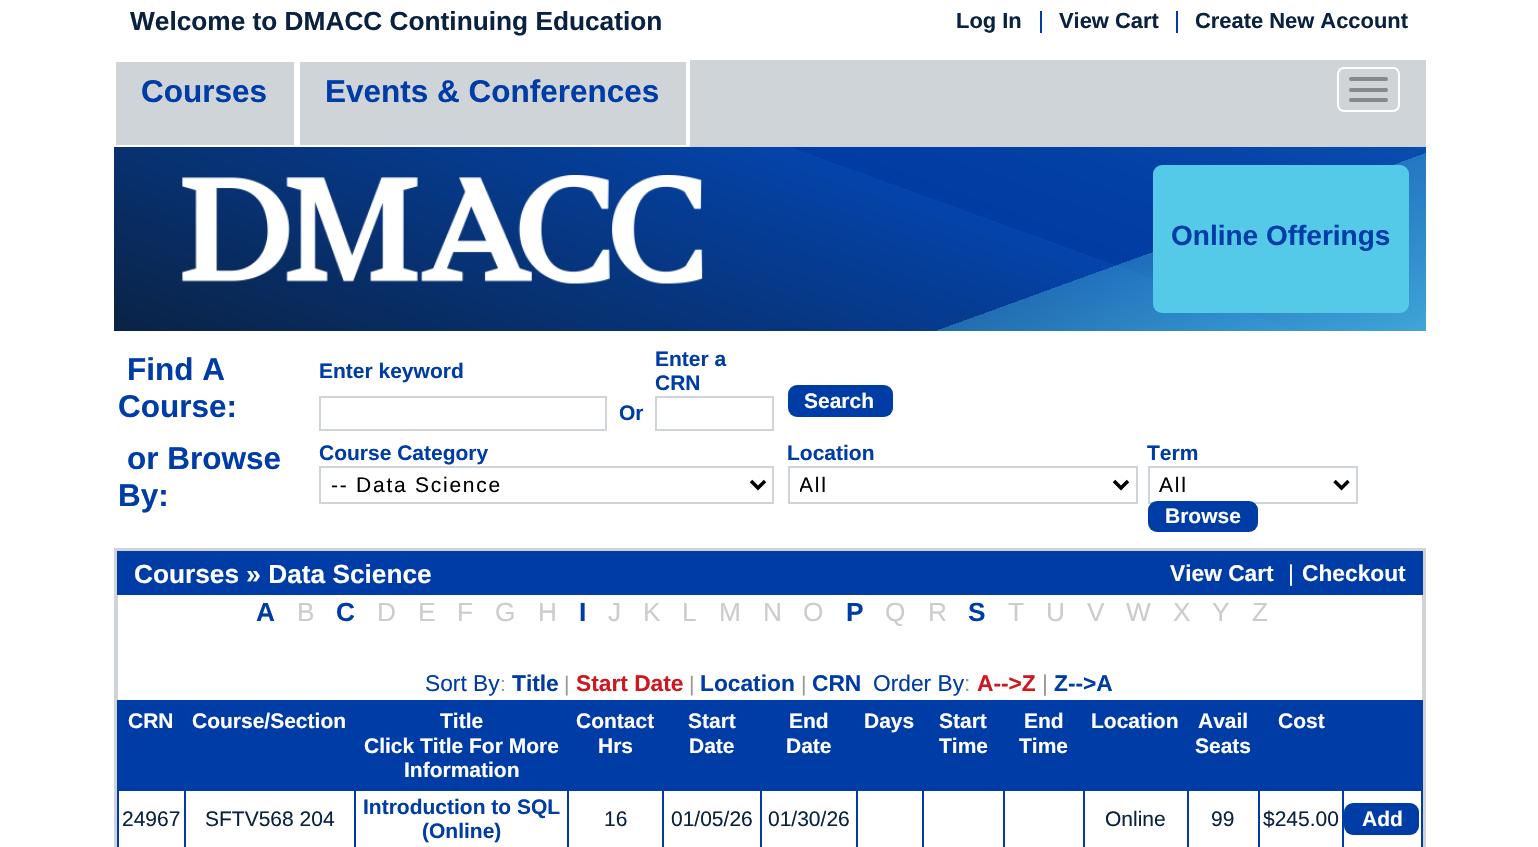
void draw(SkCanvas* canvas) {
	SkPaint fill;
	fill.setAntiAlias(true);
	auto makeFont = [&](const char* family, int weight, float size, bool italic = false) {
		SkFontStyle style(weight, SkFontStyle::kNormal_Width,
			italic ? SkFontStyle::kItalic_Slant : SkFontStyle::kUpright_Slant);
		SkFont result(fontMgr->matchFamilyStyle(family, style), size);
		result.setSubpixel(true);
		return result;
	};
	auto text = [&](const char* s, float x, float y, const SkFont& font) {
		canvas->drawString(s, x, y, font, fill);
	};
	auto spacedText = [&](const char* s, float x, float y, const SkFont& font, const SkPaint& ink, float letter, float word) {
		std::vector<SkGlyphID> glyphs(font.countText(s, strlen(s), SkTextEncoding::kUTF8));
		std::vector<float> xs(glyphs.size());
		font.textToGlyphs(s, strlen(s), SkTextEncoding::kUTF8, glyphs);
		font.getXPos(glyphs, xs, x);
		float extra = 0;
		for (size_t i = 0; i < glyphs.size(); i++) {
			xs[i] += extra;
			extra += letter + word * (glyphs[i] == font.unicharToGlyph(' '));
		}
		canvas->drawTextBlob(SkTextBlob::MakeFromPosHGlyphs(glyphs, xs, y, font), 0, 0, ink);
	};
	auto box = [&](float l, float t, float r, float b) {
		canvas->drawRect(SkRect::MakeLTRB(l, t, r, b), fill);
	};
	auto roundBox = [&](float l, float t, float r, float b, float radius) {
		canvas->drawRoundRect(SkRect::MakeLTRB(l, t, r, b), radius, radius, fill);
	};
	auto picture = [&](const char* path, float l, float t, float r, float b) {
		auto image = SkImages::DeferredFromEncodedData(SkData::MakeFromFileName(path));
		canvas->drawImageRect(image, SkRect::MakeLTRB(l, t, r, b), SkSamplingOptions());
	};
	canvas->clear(0xFFFFFFFF);
	fill.setColor(0xFF003CA6);
	box(1040, 11, 1042, 33);
	box(1176, 11, 1178, 33);
	fill.setColor(0xFFCFD4D8);
	box(116, 60, 1426, 147);
	fill.setColor(0xFFFFFFFF);
	box(114, 60, 690, 62);
	box(294, 60, 298, 147);
	box(114, 145, 298, 147);
	box(686, 60, 690, 147);
	box(298, 145, 690, 147);
	box(298, 60, 300, 147);
	fill.setStyle(SkPaint::kStroke_Style);
	fill.setStrokeWidth(2);
	canvas->drawRoundRect(SkRect::MakeLTRB(1338, 68, 1399, 111), 6, 6, fill);
	fill.setStyle(SkPaint::kFill_Style);
	fill.setColor(0xFF888888);
	roundBox(1349, 77, 1388, 81, 2);
	roundBox(1349, 88, 1388, 92, 2);
	roundBox(1349, 98, 1388, 102, 2);
	{
		const SkColor colors[] = {0xFF0A2345, 0xFF0444AB, 0xFF003DA8, 0xFF003DA8};
		const float stops[] = {0, 0.65f, 0.65f, 1};
		const SkPoint ends[] = {{664, 531}, {876, -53}};
		fill.setShader(SkGradientShader::MakeLinear(ends, colors, stops, 4, SkTileMode::kClamp));
		fill.setAlpha(255);
	}
	box(114, 147, 1426, 331);
	{
		const SkColor colors[] = {0x00000000, 0x000A2240, 0x0D0A2240, 0x1F54C8E8};
		const float stops[] = {0, 0.65f, 0.65f, 1};
		const SkPoint ends[] = {{664, 531}, {876, -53}};
		fill.setShader(SkGradientShader::MakeLinear(ends, colors, stops, 4, SkTileMode::kClamp));
		fill.setAlpha(255);
	}
	box(791, 147, 1426, 331);
	{
		const SkColor colors[] = {0x00000000, 0x0054C8E8, 0x5954C8E8, 0xBF54C8E8};
		const float stops[] = {0, 0.73f, 0.73f, 1};
		const SkPoint ends[] = {{664, -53}, {876, 531}};
		fill.setShader(SkGradientShader::MakeLinear(ends, colors, stops, 4, SkTileMode::kClamp));
		fill.setAlpha(255);
	}
	box(937, 153, 1426, 331);
	picture("image0.png", 182, 175, 703, 284);
	fill.setShader(nullptr);
	fill.setColor(0xFF54C9E8);
	roundBox(1153, 165, 1409, 313, 9);
	fill.setStyle(SkPaint::kStroke_Style);
	fill.setColor(0xFFCFD4D8);
	canvas->drawRect(SkRect::MakeLTRB(320, 397, 606, 430), fill);
	canvas->drawRect(SkRect::MakeLTRB(656, 397, 773, 430), fill);
	fill.setStyle(SkPaint::kFill_Style);
	fill.setColor(0xFF003CA6);
	roundBox(788, 385, 893, 417, 9);
	fill.setStyle(SkPaint::kStroke_Style);
	fill.setColor(0xFFCFD4D8);
	canvas->drawRect(SkRect::MakeLTRB(320, 467, 773, 503), fill);
	fill.setStrokeWidth(3.5f);
	fill.setColor(0xFF000000);
	canvas->drawPath(SkPathBuilder().moveTo(751, 481).lineTo(758, 488).lineTo(765, 481).detach(), fill);
	fill.setStrokeWidth(2);
	fill.setColor(0xFFCFD4D8);
	canvas->drawRect(SkRect::MakeLTRB(789, 467, 1137, 503), fill);
	fill.setStrokeWidth(3.5f);
	fill.setColor(0xFF000000);
	canvas->drawPath(SkPathBuilder().moveTo(1114, 481).lineTo(1121, 488).lineTo(1128, 481).detach(), fill);
	fill.setStrokeWidth(2);
	fill.setColor(0xFFCFD4D8);
	canvas->drawRect(SkRect::MakeLTRB(1149, 467, 1357, 503), fill);
	fill.setStrokeWidth(3.5f);
	fill.setColor(0xFF000000);
	canvas->drawPath(SkPathBuilder().moveTo(1334.5f, 481).lineTo(1341.5f, 488).lineTo(1348.5f, 481).detach(), fill);
	fill.setStyle(SkPaint::kFill_Style);
	fill.setColor(0xFF003CA6);
	roundBox(1148, 501, 1258, 532, 9);
	fill.setStyle(SkPaint::kStroke_Style);
	fill.setStrokeWidth(4);
	fill.setColor(0xFFCFD4D8);
	canvas->drawRect(SkRect::MakeLTRB(116, 550, 1424, 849), fill);
	fill.setStyle(SkPaint::kFill_Style);
	fill.setColor(0xFF003CA6);
	box(117, 551, 1423, 595);
	box(1344, 702, 1421, 789);
	box(117, 700, 1423, 702);
	box(184, 702, 1344, 791);
	box(1342, 789, 1423, 791);
	box(1421, 789, 1423, 847);
	box(1421, 700, 1423, 791);
	box(119, 702, 184, 789);
	box(184, 789, 186, 847);
	box(117, 789, 186, 791);
	box(117, 789, 119, 847);
	box(117, 700, 119, 791);
	box(354, 789, 356, 847);
	box(567, 789, 569, 847);
	box(662, 789, 664, 847);
	box(760, 789, 762, 847);
	box(856, 789, 858, 847);
	box(922, 789, 924, 847);
	box(1003, 789, 1005, 847);
	box(1083, 789, 1085, 847);
	box(1187, 789, 1189, 847);
	box(1258, 789, 1260, 847);
	box(1342, 789, 1344, 847);
	roundBox(1344, 803, 1419, 835, 9);
	auto font1 = makeFont("Liberation Sans", 700, 26.25f);
	fill.setColor(0xFF0A2240);
	text("Welcome to DMACC Continuing Education", 130, 30, font1);
	auto font2 = makeFont("Liberation Sans", 700, 21.9f);
	text("Log In", 956, 28, font2);
	text("View Cart", 1059, 28, font2);
	text("Create New Account", 1195, 28, font2);
	auto font3 = makeFont("Liberation Sans", 700, 31.5f);
	fill.setColor(0xFF003CA6);
	text("Courses", 141, 102, font3);
	text("Events & Conferences", 325, 102, font3);
	auto font4 = makeFont("Liberation Sans", 700, 28);
	text("Online Offerings", 1171, 245, font4);
	text("Find A", 127, 380, font3);
	text("Course:", 118, 417, font3);
	auto font5 = makeFont("Liberation Sans", 700, 21);
	text("Enter keyword", 319, 378, font5);
	text("Enter a", 655, 366, font5);
	text("CRN", 655, 390, font5);
	text("Or", 619, 420, font5);
	fill.setColor(0xFFFFFFFF);
	text("Search", 804, 408, font5);
	fill.setColor(0xFF003CA6);
	text("or Browse", 127, 469, font3);
	text("By:", 118, 506, font3);
	text("Course Category", 319, 460, font5);
	auto font6 = makeFont("Liberation Sans", 400, 21);
	fill.setColor(0xFF000000);
	spacedText("-- Data Science", 331, 492, font6, fill, 1.75f, 0);
	fill.setColor(0xFF003CA6);
	text("Location", 787, 460, font5);
	canvas->save();
	canvas->clipRect(SkRect::MakeLTRB(800, 471, 1104, 499));
	fill.setColor(0xFF000000);
	spacedText("All", 799, 492, font6, fill, 1.75f, 0);
	canvas->restore();
	fill.setColor(0xFF003CA6);
	text("Term", 1147, 460, font5);
	fill.setColor(0xFF000000);
	spacedText("All", 1159, 492, font6, fill, 1.75f, 0);
	fill.setColor(0xFFFFFFFF);
	text("Browse", 1165, 523, font5);
	text("Courses » Data Science", 134, 583, font1);
	auto font7 = makeFont("Liberation Sans", 700, 22.75f);
	text("View Cart", 1170, 581, font7);
	auto font8 = makeFont("Liberation Sans", 400, 22.75f);
	text("|", 1288, 581, font8);
	text("Checkout", 1302, 581, font7);
	fill.setColor(0xFF003CA6);
	text("A", 256, 621, font1);
	auto font9 = makeFont("Liberation Sans", 400, 26.25f);
	fill.setColor(0xFFCCCCCC);
	text("B", 297, 621, font9);
	fill.setColor(0xFF003CA6);
	text("C", 336, 621, font1);
	fill.setColor(0xFFCCCCCC);
	text("D", 377, 621, font9);
	text("E", 418, 621, font9);
	text("F", 457, 621, font9);
	text("G", 495, 621, font9);
	text("H", 538, 621, font9);
	fill.setColor(0xFF003CA6);
	text("I", 579, 621, font1);
	fill.setColor(0xFFCCCCCC);
	text("J", 608, 621, font9);
	text("K", 643, 621, font9);
	text("L", 682, 621, font9);
	text("M", 719, 621, font9);
	text("N", 763, 621, font9);
	text("O", 803, 621, font9);
	fill.setColor(0xFF003CA6);
	text("P", 846, 621, font1);
	fill.setColor(0xFFCCCCCC);
	text("Q", 885, 621, font9);
	text("R", 928, 621, font9);
	fill.setColor(0xFF003CA6);
	text("S", 968, 621, font1);
	fill.setColor(0xFFCCCCCC);
	text("T", 1008, 621, font9);
	text("U", 1046, 621, font9);
	text("V", 1087, 621, font9);
	text("W", 1126, 621, font9);
	text("X", 1173, 621, font9);
	text("Y", 1212, 621, font9);
	text("Z", 1252, 621, font9);
	fill.setColor(0xFF003CA6);
	text("Sort By", 425, 691, font8);
	fill.setColor(0xFF999999);
	text(":", 500, 691, font6);
	fill.setColor(0xFF003CA6);
	text("Title", 512, 691, font7);
	fill.setColor(0xFF999999);
	text("|", 564, 691, font6);
	fill.setColor(0xFFCF171F);
	text("Start Date", 576, 691, font7);
	fill.setColor(0xFF999999);
	text("|", 689, 691, font6);
	fill.setColor(0xFF003CA6);
	text("Location", 700, 691, font7);
	fill.setColor(0xFF999999);
	text("|", 801, 691, font6);
	fill.setColor(0xFF003CA6);
	text("CRN", 812, 691, font7);
	text("Order By", 873, 691, font8);
	fill.setColor(0xFF999999);
	text(":", 964, 691, font8);
	fill.setColor(0xFFCF171F);
	text("A-->Z", 977, 691, font7);
	fill.setColor(0xFF999999);
	text("|", 1042, 691, font8);
	fill.setColor(0xFF003CA6);
	text("Z-->A", 1054, 691, font7);
	fill.setColor(0xFFFFFFFF);
	text("CRN", 128, 728, font5);
	text("Course/Section", 192, 728, font5);
	text("Title", 440, 728, font5);
	text("Click Title For More", 364, 753, font5);
	text("Information", 404, 777, font5);
	text("Contact", 576, 728, font5);
	text("Hrs", 598, 753, font5);
	text("Start", 688, 728, font5);
	text("Date", 689, 753, font5);
	text("End", 789, 728, font5);
	text("Date", 786, 753, font5);
	text("Days", 864, 728, font5);
	text("Start", 939, 728, font5);
	text("Time", 939, 753, font5);
	text("End", 1024, 728, font5);
	text("Time", 1019, 753, font5);
	text("Location", 1091, 728, font5);
	text("Avail", 1198, 728, font5);
	text("Seats", 1195, 753, font5);
	text("Cost", 1278, 728, font5);
	fill.setColor(0xFF0A2240);
	text("24967", 122, 826, font6);
	text("SFTV568 204", 205, 826, font6);
	fill.setColor(0xFF003CA6);
	text("Introduction to SQL", 363, 814, font5);
	text("(Online)", 422, 838, font5);
	fill.setColor(0xFF0A2240);
	text("16", 604, 826, font6);
	text("01/05/26", 671, 826, font6);
	text("01/30/26", 768, 826, font6);
	text("Online", 1105, 826, font6);
	text("99", 1211, 826, font6);
	text("$245.00", 1263, 826, font6);
	fill.setColor(0xFFFFFFFF);
	text("Add", 1362, 826, font5);
}
